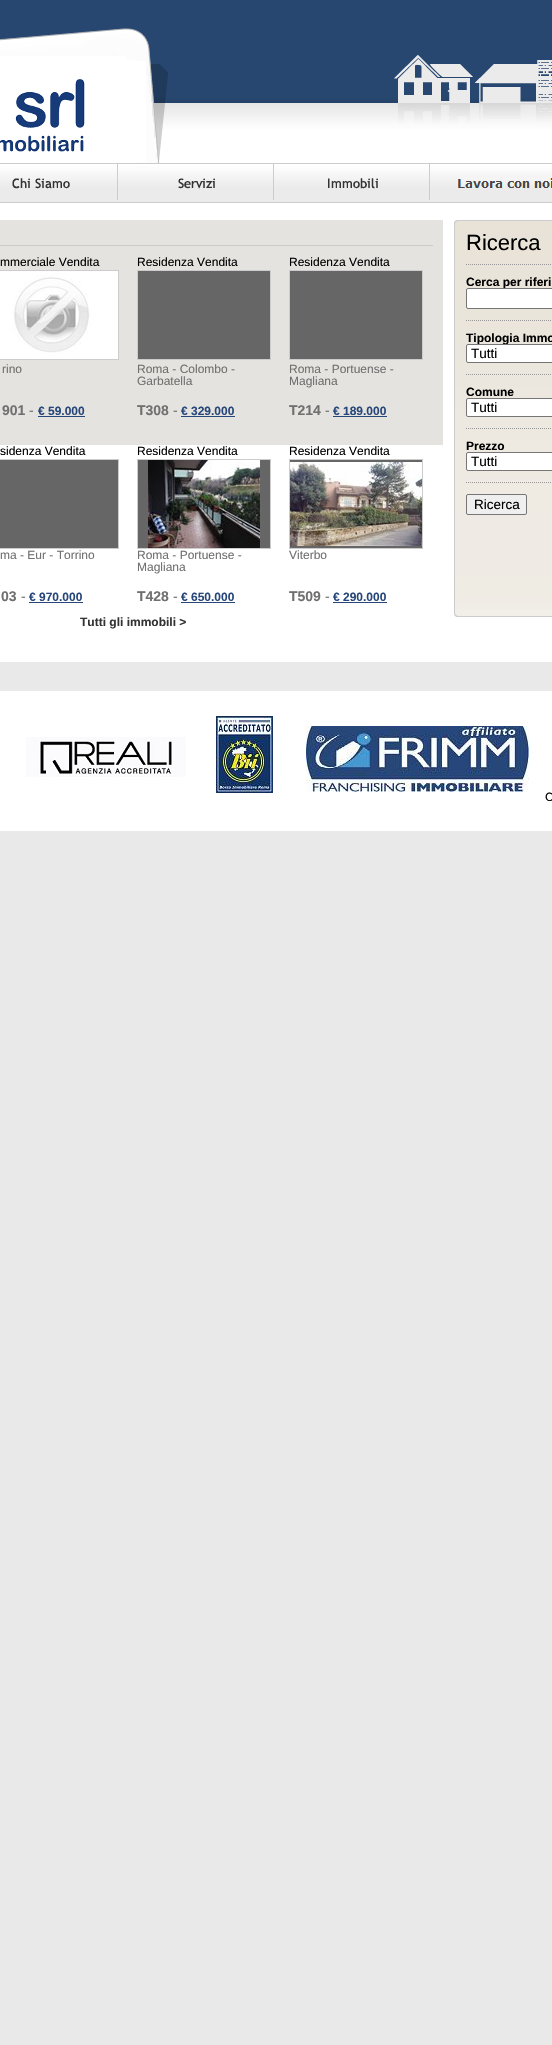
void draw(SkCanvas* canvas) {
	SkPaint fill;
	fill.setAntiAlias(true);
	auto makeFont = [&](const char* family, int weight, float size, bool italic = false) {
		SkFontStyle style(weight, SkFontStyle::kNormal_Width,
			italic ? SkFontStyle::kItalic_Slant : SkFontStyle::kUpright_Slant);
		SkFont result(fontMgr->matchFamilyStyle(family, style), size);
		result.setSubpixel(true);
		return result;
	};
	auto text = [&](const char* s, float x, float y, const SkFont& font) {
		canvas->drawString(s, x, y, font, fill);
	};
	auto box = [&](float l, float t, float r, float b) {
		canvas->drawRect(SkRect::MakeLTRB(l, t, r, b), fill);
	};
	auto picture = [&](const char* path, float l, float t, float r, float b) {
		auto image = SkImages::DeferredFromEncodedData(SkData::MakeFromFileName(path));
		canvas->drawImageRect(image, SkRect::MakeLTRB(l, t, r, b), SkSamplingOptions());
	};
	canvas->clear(0xFFE9E9E9);
	picture("image0.png", 0, 0, 552, 103);
	picture("image1.png", 0, 28, 552, 163);
	picture("image2.png", 0, 164, 552, 202);
	fill.setColor(0xFFCCCCCC);
	box(0, 163, 552, 164);
	box(0, 202, 552, 203);
	picture("image3.png", 12, 178, 70, 189);
	box(117, 164, 118, 200);
	picture("image4.png", 178, 178, 215, 189);
	box(273, 164, 274, 200);
	picture("image5.png", 328, 178, 378, 189);
	box(429, 164, 430, 200);
	picture("image6.png", 457, 178, 552, 188);
	fill.setColor(0xFFFFFFFF);
	box(0, 203, 552, 662);
	fill.setColor(0xFFE5E3DF);
	box(0, 220, 443, 445);
	fill.setColor(0xFFCCCCCC);
	box(0, 245, 433, 246);
	picture("image7.png", 0, 271, 118, 359);
	fill.setStyle(SkPaint::kStroke_Style);
	fill.setStrokeWidth(1);
	canvas->drawRect(SkRect::MakeLTRB(-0.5f, 270.5f, 118.5f, 359.5f), fill);
	fill.setStyle(SkPaint::kFill_Style);
	fill.setColor(0xFF27477A);
	box(38, 416, 85, 417);
	fill.setColor(0xFF666666);
	canvas->drawRect(SkRect::MakeLTRB(137.5f, 270.5f, 270.5f, 359.5f), fill);
	fill.setStyle(SkPaint::kStroke_Style);
	fill.setColor(0xFFCCCCCC);
	canvas->drawRect(SkRect::MakeLTRB(137.5f, 270.5f, 270.5f, 359.5f), fill);
	fill.setStyle(SkPaint::kFill_Style);
	fill.setColor(0xFF27477A);
	box(181, 416, 235, 417);
	fill.setColor(0xFF666666);
	canvas->drawRect(SkRect::MakeLTRB(289.5f, 270.5f, 422.5f, 359.5f), fill);
	fill.setStyle(SkPaint::kStroke_Style);
	fill.setColor(0xFFCCCCCC);
	canvas->drawRect(SkRect::MakeLTRB(289.5f, 270.5f, 422.5f, 359.5f), fill);
	fill.setStyle(SkPaint::kFill_Style);
	fill.setColor(0xFF27477A);
	box(333, 416, 387, 417);
	fill.setColor(0xFF666666);
	canvas->drawRect(SkRect::MakeLTRB(-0.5f, 459.5f, 118.5f, 548.5f), fill);
	fill.setStyle(SkPaint::kStroke_Style);
	fill.setColor(0xFFCCCCCC);
	canvas->drawRect(SkRect::MakeLTRB(-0.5f, 459.5f, 118.5f, 548.5f), fill);
	fill.setStyle(SkPaint::kFill_Style);
	fill.setColor(0xFF27477A);
	box(29, 602, 83, 603);
	fill.setColor(0xFF666666);
	box(138, 460, 270, 548);
	picture("image8.png", 148, 460, 260, 548);
	fill.setStyle(SkPaint::kStroke_Style);
	fill.setColor(0xFFCCCCCC);
	canvas->drawRect(SkRect::MakeLTRB(137.5f, 459.5f, 270.5f, 548.5f), fill);
	fill.setStyle(SkPaint::kFill_Style);
	fill.setColor(0xFF27477A);
	box(181, 602, 235, 603);
	fill.setColor(0xFF666666);
	box(290, 460, 422, 548);
	picture("image9.png", 290, 462, 422, 546);
	fill.setStyle(SkPaint::kStroke_Style);
	fill.setColor(0xFFCCCCCC);
	canvas->drawRect(SkRect::MakeLTRB(289.5f, 459.5f, 422.5f, 548.5f), fill);
	fill.setStyle(SkPaint::kFill_Style);
	fill.setColor(0xFF27477A);
	box(333, 602, 387, 603);
	picture("image10.png", 454, 220, 552, 617);
	fill.setStyle(SkPaint::kStroke_Style);
	fill.setColor(0xFF999999);
	fill.setPathEffect(SkDashPathEffect::Make({{1, 1}}, 0));
	canvas->drawPath(SkPathBuilder().moveTo(466, 264.5f).lineTo(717, 264.5f).detach(), fill);
	fill.setPathEffect(nullptr);
	fill.setPathEffect(SkDashPathEffect::Make({{1, 1}}, 0));
	canvas->drawPath(SkPathBuilder().moveTo(466, 320.5f).lineTo(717, 320.5f).detach(), fill);
	fill.setPathEffect(nullptr);
	fill.setPathEffect(SkDashPathEffect::Make({{1, 1}}, 0));
	canvas->drawPath(SkPathBuilder().moveTo(466, 374.5f).lineTo(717, 374.5f).detach(), fill);
	fill.setPathEffect(nullptr);
	fill.setStyle(SkPaint::kFill_Style);
	fill.setColor(0xFFFFFFFF);
	canvas->drawRoundRect(SkRect::MakeLTRB(466.5f, 398.5f, 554.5f, 416.5f), 1.5f, 1.5f, fill);
	fill.setStyle(SkPaint::kStroke_Style);
	fill.setColor(0xFF767676);
	canvas->drawRoundRect(SkRect::MakeLTRB(466.5f, 398.5f, 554.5f, 416.5f), 1.5f, 1.5f, fill);
	fill.setColor(0xFF999999);
	fill.setPathEffect(SkDashPathEffect::Make({{1, 1}}, 0));
	canvas->drawPath(SkPathBuilder().moveTo(466, 428.5f).lineTo(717, 428.5f).detach(), fill);
	fill.setPathEffect(nullptr);
	fill.setStyle(SkPaint::kFill_Style);
	fill.setColor(0xFFFFFFFF);
	canvas->drawRoundRect(SkRect::MakeLTRB(466.5f, 452.5f, 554.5f, 470.5f), 1.5f, 1.5f, fill);
	fill.setStyle(SkPaint::kStroke_Style);
	fill.setColor(0xFF767676);
	canvas->drawRoundRect(SkRect::MakeLTRB(466.5f, 452.5f, 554.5f, 470.5f), 1.5f, 1.5f, fill);
	fill.setColor(0xFF999999);
	fill.setPathEffect(SkDashPathEffect::Make({{1, 1}}, 0));
	canvas->drawPath(SkPathBuilder().moveTo(466, 482.5f).lineTo(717, 482.5f).detach(), fill);
	fill.setPathEffect(nullptr);
	fill.setStyle(SkPaint::kFill_Style);
	fill.setColor(0xFFEFEFEF);
	canvas->drawRoundRect(SkRect::MakeLTRB(466.5f, 494.5f, 526.5f, 514.5f), 1.5f, 1.5f, fill);
	fill.setStyle(SkPaint::kStroke_Style);
	fill.setColor(0xFF767676);
	canvas->drawRoundRect(SkRect::MakeLTRB(466.5f, 494.5f, 526.5f, 514.5f), 1.5f, 1.5f, fill);
	fill.setStyle(SkPaint::kFill_Style);
	fill.setColor(0xFFFFFFFF);
	box(0, 691, 552, 831);
	picture("image11.png", 26, 737, 186, 777);
	picture("image12.png", 216, 716, 273, 793);
	picture("image13.png", 306, 726, 529, 792);
	auto font1 = makeFont("Liberation Sans", 400, 12);
	fill.setColor(0xFF000000);
	text("mmerciale Vendita", 0, 266, font1);
	fill.setColor(0xFF707070);
	text("rino", 2, 373, font1);
	auto font2 = makeFont("Liberation Sans", 700, 14);
	text("901", 2, 415, font2);
	auto font3 = makeFont("Liberation Sans", 400, 14);
	text("-", 29, 415, font3);
	auto font4 = makeFont("Liberation Sans", 700, 12);
	fill.setColor(0xFF27477A);
	text("€ 59.000", 38, 415, font4);
	fill.setColor(0xFF000000);
	text("Residenza Vendita", 137, 266, font1);
	fill.setColor(0xFF707070);
	text("Roma - Colombo -", 137, 373, font1);
	text("Garbatella", 137, 385, font1);
	text("T308", 137, 415, font2);
	text("-", 173, 415, font3);
	fill.setColor(0xFF27477A);
	text("€ 329.000", 181, 415, font4);
	fill.setColor(0xFF000000);
	text("Residenza Vendita", 289, 266, font1);
	fill.setColor(0xFF707070);
	text("Roma - Portuense -", 289, 373, font1);
	text("Magliana", 289, 385, font1);
	text("T214", 289, 415, font2);
	text("-", 325, 415, font3);
	fill.setColor(0xFF27477A);
	text("€ 189.000", 333, 415, font4);
	fill.setColor(0xFF000000);
	text("sidenza Vendita", 0, 455, font1);
	fill.setColor(0xFF707070);
	text("ma - Eur - Torrino", 0, 559, font1);
	text("03", 1, 601, font2);
	text("-", 21, 601, font3);
	fill.setColor(0xFF27477A);
	text("€ 970.000", 29, 601, font4);
	fill.setColor(0xFF000000);
	text("Residenza Vendita", 137, 455, font1);
	fill.setColor(0xFF707070);
	text("Roma - Portuense -", 137, 559, font1);
	text("Magliana", 137, 571, font1);
	text("T428", 137, 601, font2);
	text("-", 173, 601, font3);
	fill.setColor(0xFF27477A);
	text("€ 650.000", 181, 601, font4);
	fill.setColor(0xFF000000);
	text("Residenza Vendita", 289, 455, font1);
	fill.setColor(0xFF707070);
	text("Viterbo", 289, 559, font1);
	text("T509", 289, 601, font2);
	text("-", 325, 601, font3);
	fill.setColor(0xFF27477A);
	text("€ 290.000", 333, 601, font4);
	fill.setColor(0xFF333333);
	text("Tutti gli immobili >", 80, 626, font4);
	auto font5 = makeFont("Liberation Sans", 400, 22);
	fill.setColor(0xFF000000);
	text("Ricerca", 466, 250, font5);
	text("Cerca per riferi", 466, 286, font4);
	fill.setColor(0xFFFFFFFF);
	canvas->drawRoundRect(SkRect::MakeLTRB(466.5f, 288.5f, 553.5f, 308.5f), 1.5f, 1.5f, fill);
	fill.setStyle(SkPaint::kStroke_Style);
	fill.setColor(0xFF767676);
	canvas->drawRoundRect(SkRect::MakeLTRB(466.5f, 288.5f, 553.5f, 308.5f), 1.5f, 1.5f, fill);
	fill.setStyle(SkPaint::kFill_Style);
	fill.setColor(0xFF000000);
	text("Tipologia Immo", 466, 342, font4);
	fill.setColor(0xFFFFFFFF);
	canvas->drawRoundRect(SkRect::MakeLTRB(466.5f, 344.5f, 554.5f, 362.5f), 1.5f, 1.5f, fill);
	fill.setStyle(SkPaint::kStroke_Style);
	fill.setColor(0xFF767676);
	canvas->drawRoundRect(SkRect::MakeLTRB(466.5f, 344.5f, 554.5f, 362.5f), 1.5f, 1.5f, fill);
	auto font6 = makeFont("Liberation Sans", 400, 13.5f);
	fill.setStyle(SkPaint::kFill_Style);
	fill.setColor(0xFF000000);
	text("Tutti", 471, 358, font6);
	text("Comune", 466, 396, font4);
	text("Tutti", 471, 412, font6);
	text("Prezzo", 466, 450, font4);
	text("Tutti", 471, 466, font6);
	text("Ricerca", 474, 509, font6);
	text("C", 545, 801, font1);
}
